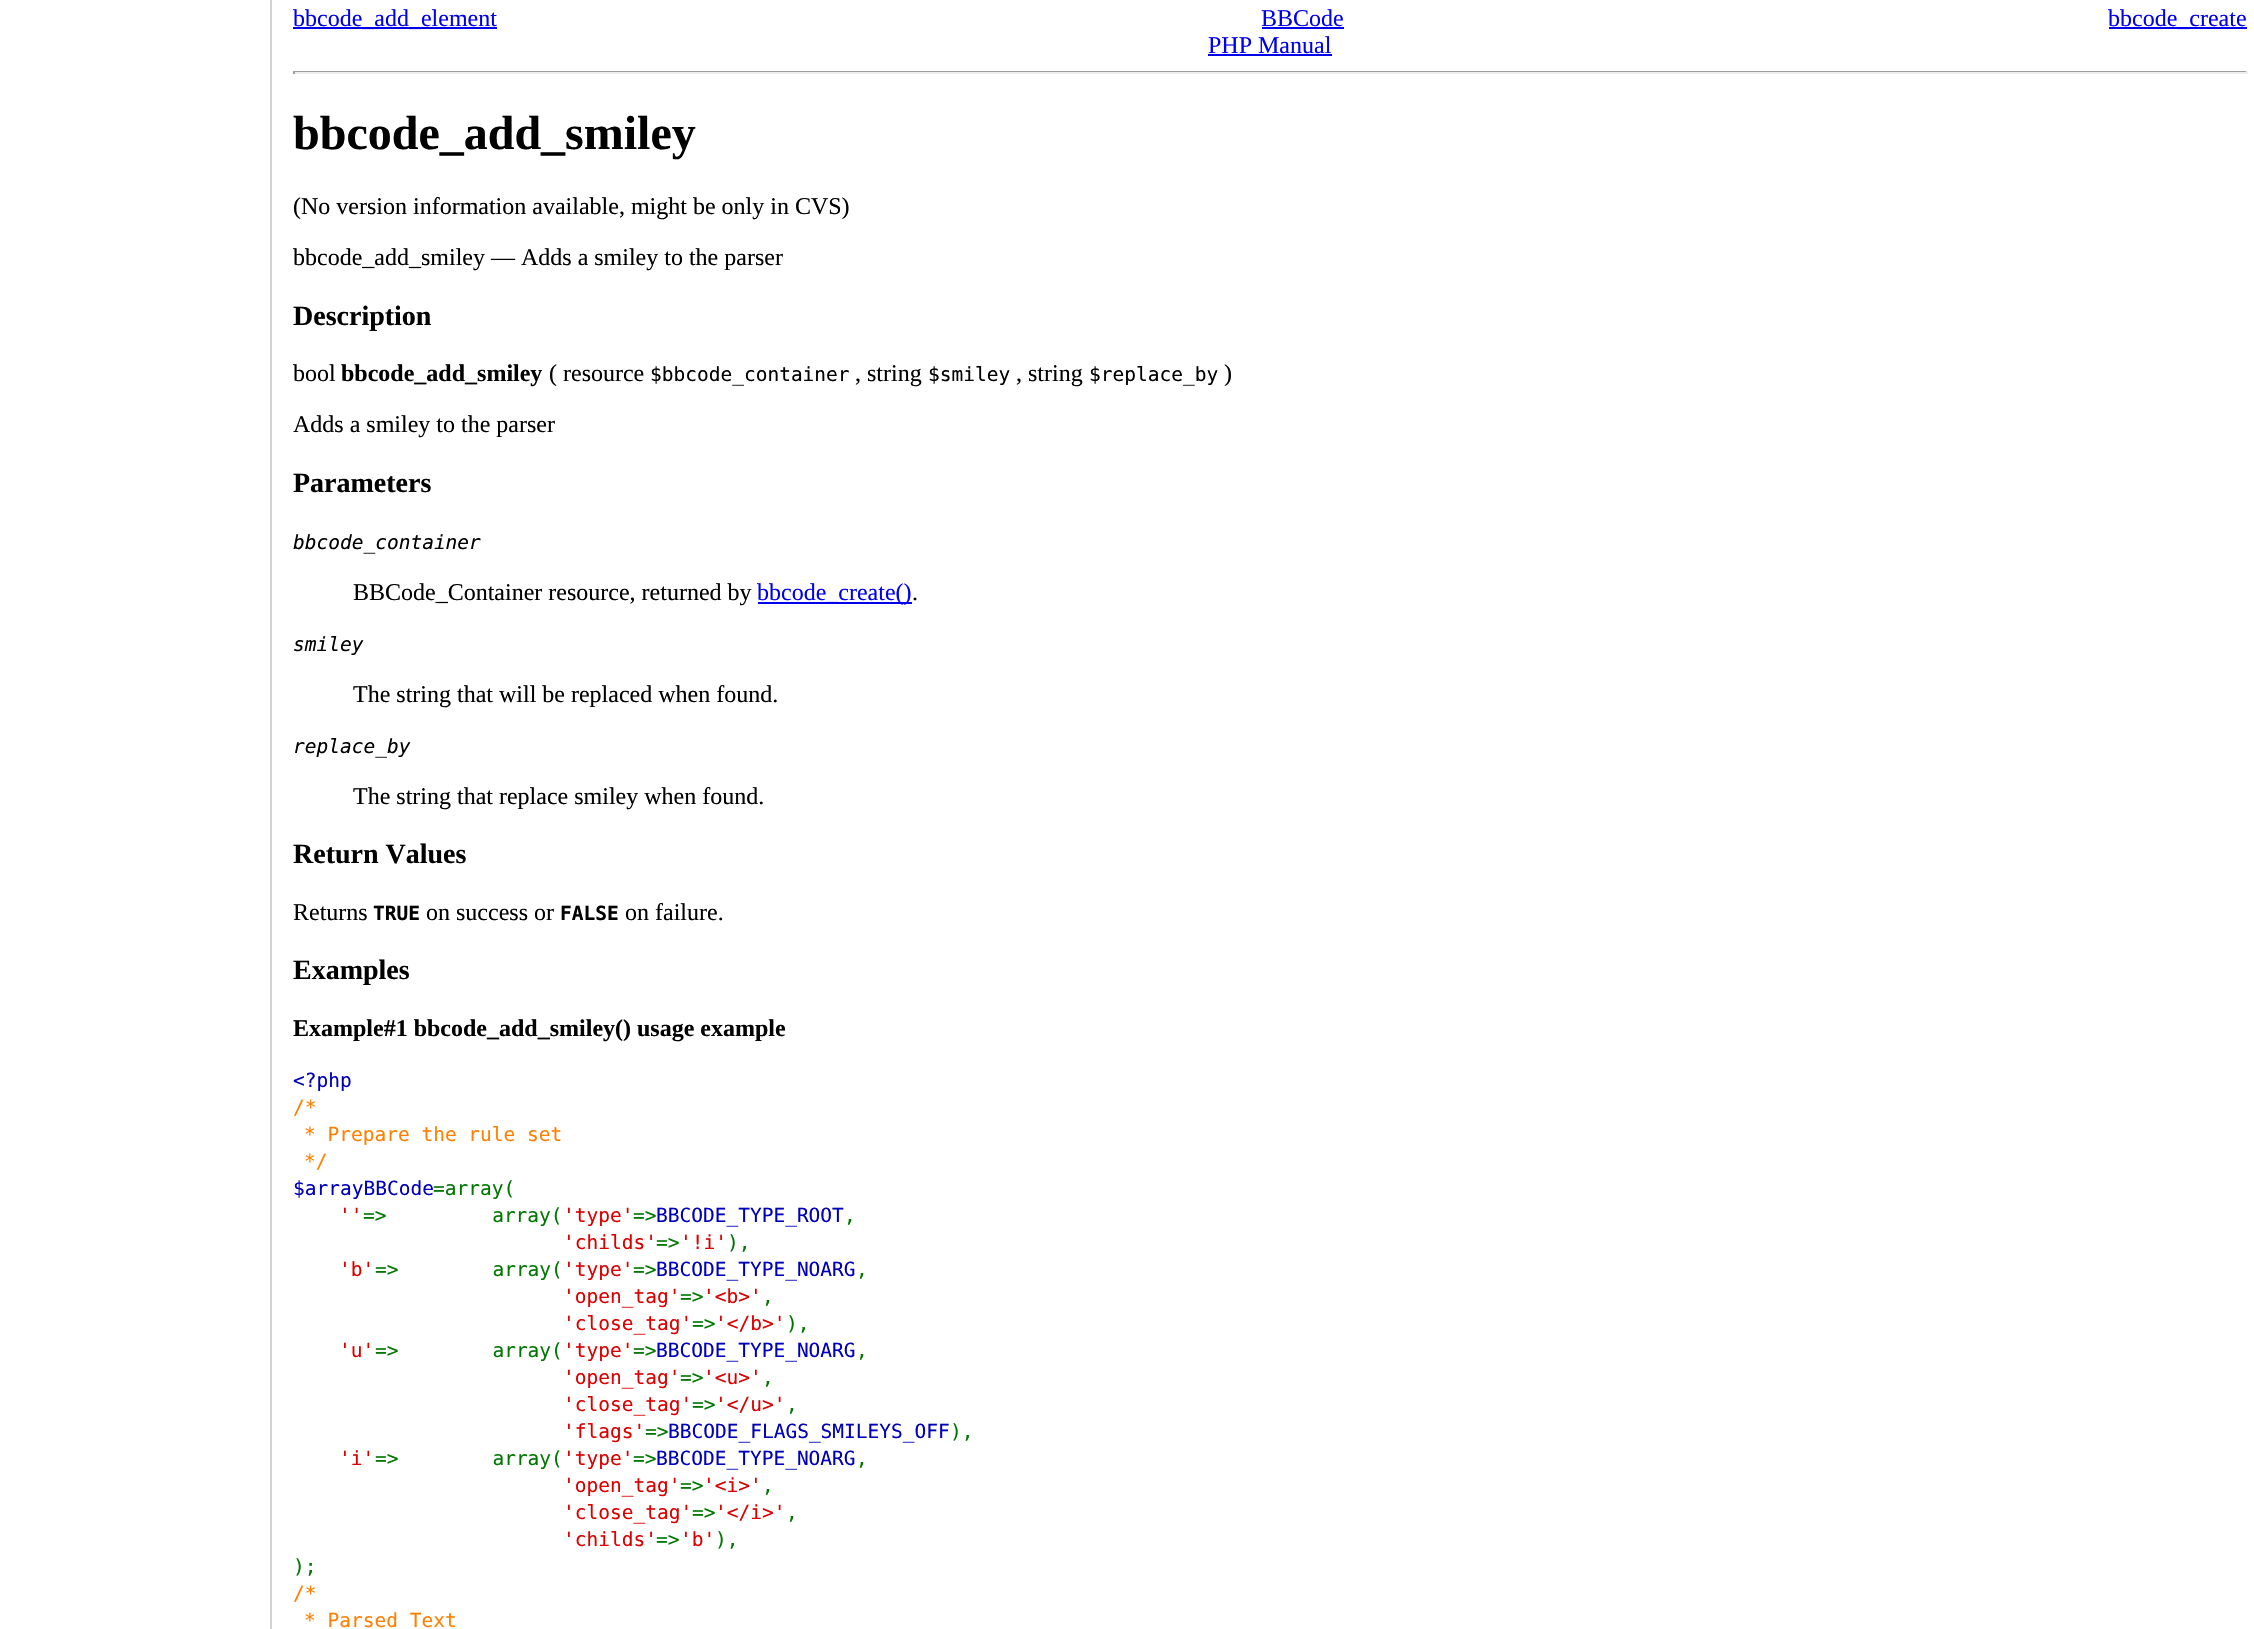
void draw(SkCanvas* canvas) {
	SkPaint fill;
	fill.setAntiAlias(true);
	auto makeFont = [&](const char* family, int weight, float size, bool italic = false) {
		SkFontStyle style(weight, SkFontStyle::kNormal_Width,
			italic ? SkFontStyle::kItalic_Slant : SkFontStyle::kUpright_Slant);
		SkFont result(fontMgr->matchFamilyStyle(family, style), size);
		result.setSubpixel(true);
		return result;
	};
	auto text = [&](const char* s, float x, float y, const SkFont& font) {
		canvas->drawString(s, x, y, font, fill);
	};
	auto box = [&](float l, float t, float r, float b) {
		canvas->drawRect(SkRect::MakeLTRB(l, t, r, b), fill);
	};
	canvas->clear(0xFFFFFFFF);
	fill.setColor(0xFFD3D3D3);
	box(270, 0, 272, 1629);
	fill.setColor(0xFF0000EE);
	box(293, 27, 497, 29);
	box(1262, 27, 1344, 29);
	box(2109, 27, 2247, 29);
	box(1208, 54, 1332, 56);
	fill.setColor(0xFF9F9F9F);
	box(293, 71, 2247, 72);
	fill.setColor(0xFFEEEEEE);
	box(2246, 71, 2248, 74);
	box(293, 72, 2247, 74);
	fill.setColor(0xFF9F9F9F);
	box(293, 71, 295, 74);
	fill.setColor(0xFF0000EE);
	box(758, 602, 912, 604);
	auto font1 = makeFont("Liberation Serif", 400, 24);
	text("bbcode_add_element", 293, 26, font1);
	text("BBCode", 1261, 26, font1);
	text("bbcode_create", 2108, 26, font1);
	text("PHP Manual", 1208, 53, font1);
	auto font2 = makeFont("Liberation Serif", 700, 48);
	fill.setColor(0xFF000000);
	text("bbcode_add_smiley", 293, 149, font2);
	text("(No version information available, might be only in CVS)", 293, 214, font1);
	text("bbcode_add_smiley — Adds a smiley to the parser", 293, 265, font1);
	auto font3 = makeFont("Liberation Serif", 700, 28);
	text("Description", 293, 325, font3);
	text("bool", 293, 381, font1);
	auto font4 = makeFont("Liberation Serif", 700, 24);
	text("bbcode_add_smiley", 341, 381, font4);
	text("( resource", 549, 381, font1);
	auto font5 = makeFont("DejaVu Sans Mono", 400, 19.5f);
	text("$bbcode_container", 650, 381, font5);
	text(", string", 855, 381, font1);
	text("$smiley", 928, 381, font5);
	text(", string", 1016, 381, font1);
	text("$replace_by", 1089, 381, font5);
	text(")", 1224, 381, font1);
	text("Adds a smiley to the parser", 293, 432, font1);
	text("Parameters", 293, 492, font3);
	auto font6 = makeFont("DejaVu Sans Mono", 400, 19.5f, true);
	text("bbcode_container", 293, 549, font6);
	text("BBCode_Container resource, returned by", 353, 600, font1);
	fill.setColor(0xFF0000EE);
	text("bbcode_create()", 757, 600, font1);
	fill.setColor(0xFF000000);
	text(".", 912, 600, font1);
	text("smiley", 293, 651, font6);
	text("The string that will be replaced when found.", 353, 702, font1);
	text("replace_by", 293, 753, font6);
	text("The string that replace smiley when found.", 353, 804, font1);
	text("Return Values", 293, 863, font3);
	text("Returns", 293, 920, font1);
	auto font7 = makeFont("DejaVu Sans Mono", 700, 19.5f);
	text("TRUE", 373, 920, font7);
	text("on success or", 426, 920, font1);
	text("FALSE", 560, 920, font7);
	text("on failure.", 625, 920, font1);
	text("Examples", 293, 979, font3);
	text("Example#1 bbcode_add_smiley() usage example", 293, 1036, font4);
	fill.setColor(0xFF0000BB);
	text("<?php", 293, 1087, font5);
	fill.setColor(0xFFFF8000);
	text("/*", 293, 1114, font5);
	text("* Prepare the rule set", 304, 1141, font5);
	text("*/", 304, 1168, font5);
	fill.setColor(0xFF0000BB);
	text("$arrayBBCode", 293, 1195, font5);
	fill.setColor(0xFF007700);
	text("=array(", 433, 1195, font5);
	fill.setColor(0xFFDD0000);
	text("''", 339, 1222, font5);
	fill.setColor(0xFF007700);
	text("=>         array(", 363, 1222, font5);
	fill.setColor(0xFFDD0000);
	text("'type'", 563, 1222, font5);
	fill.setColor(0xFF007700);
	text("=>", 633, 1222, font5);
	fill.setColor(0xFF0000BB);
	text("BBCODE_TYPE_ROOT", 656, 1222, font5);
	fill.setColor(0xFF007700);
	text(",", 844, 1222, font5);
	fill.setColor(0xFFDD0000);
	text("'childs'", 563, 1249, font5);
	fill.setColor(0xFF007700);
	text("=>", 656, 1249, font5);
	fill.setColor(0xFFDD0000);
	text("'!i'", 680, 1249, font5);
	fill.setColor(0xFF007700);
	text("),", 727, 1249, font5);
	fill.setColor(0xFFDD0000);
	text("'b'", 339, 1276, font5);
	fill.setColor(0xFF007700);
	text("=>        array(", 375, 1276, font5);
	fill.setColor(0xFFDD0000);
	text("'type'", 563, 1276, font5);
	fill.setColor(0xFF007700);
	text("=>", 633, 1276, font5);
	fill.setColor(0xFF0000BB);
	text("BBCODE_TYPE_NOARG", 656, 1276, font5);
	fill.setColor(0xFF007700);
	text(",", 856, 1276, font5);
	fill.setColor(0xFFDD0000);
	text("'open_tag'", 563, 1303, font5);
	fill.setColor(0xFF007700);
	text("=>", 680, 1303, font5);
	fill.setColor(0xFFDD0000);
	text("'<b>'", 703, 1303, font5);
	fill.setColor(0xFF007700);
	text(",", 762, 1303, font5);
	fill.setColor(0xFFDD0000);
	text("'close_tag'", 563, 1330, font5);
	fill.setColor(0xFF007700);
	text("=>", 692, 1330, font5);
	fill.setColor(0xFFDD0000);
	text("'</b>'", 715, 1330, font5);
	fill.setColor(0xFF007700);
	text("),", 786, 1330, font5);
	fill.setColor(0xFFDD0000);
	text("'u'", 339, 1357, font5);
	fill.setColor(0xFF007700);
	text("=>        array(", 375, 1357, font5);
	fill.setColor(0xFFDD0000);
	text("'type'", 563, 1357, font5);
	fill.setColor(0xFF007700);
	text("=>", 633, 1357, font5);
	fill.setColor(0xFF0000BB);
	text("BBCODE_TYPE_NOARG", 656, 1357, font5);
	fill.setColor(0xFF007700);
	text(",", 856, 1357, font5);
	fill.setColor(0xFFDD0000);
	text("'open_tag'", 563, 1384, font5);
	fill.setColor(0xFF007700);
	text("=>", 680, 1384, font5);
	fill.setColor(0xFFDD0000);
	text("'<u>'", 703, 1384, font5);
	fill.setColor(0xFF007700);
	text(",", 762, 1384, font5);
	fill.setColor(0xFFDD0000);
	text("'close_tag'", 563, 1411, font5);
	fill.setColor(0xFF007700);
	text("=>", 692, 1411, font5);
	fill.setColor(0xFFDD0000);
	text("'</u>'", 715, 1411, font5);
	fill.setColor(0xFF007700);
	text(",", 786, 1411, font5);
	fill.setColor(0xFFDD0000);
	text("'flags'", 563, 1438, font5);
	fill.setColor(0xFF007700);
	text("=>", 645, 1438, font5);
	fill.setColor(0xFF0000BB);
	text("BBCODE_FLAGS_SMILEYS_OFF", 668, 1438, font5);
	fill.setColor(0xFF007700);
	text("),", 950, 1438, font5);
	fill.setColor(0xFFDD0000);
	text("'i'", 339, 1465, font5);
	fill.setColor(0xFF007700);
	text("=>        array(", 375, 1465, font5);
	fill.setColor(0xFFDD0000);
	text("'type'", 563, 1465, font5);
	fill.setColor(0xFF007700);
	text("=>", 633, 1465, font5);
	fill.setColor(0xFF0000BB);
	text("BBCODE_TYPE_NOARG", 656, 1465, font5);
	fill.setColor(0xFF007700);
	text(",", 856, 1465, font5);
	fill.setColor(0xFFDD0000);
	text("'open_tag'", 563, 1492, font5);
	fill.setColor(0xFF007700);
	text("=>", 680, 1492, font5);
	fill.setColor(0xFFDD0000);
	text("'<i>'", 703, 1492, font5);
	fill.setColor(0xFF007700);
	text(",", 762, 1492, font5);
	fill.setColor(0xFFDD0000);
	text("'close_tag'", 563, 1519, font5);
	fill.setColor(0xFF007700);
	text("=>", 692, 1519, font5);
	fill.setColor(0xFFDD0000);
	text("'</i>'", 715, 1519, font5);
	fill.setColor(0xFF007700);
	text(",", 786, 1519, font5);
	fill.setColor(0xFFDD0000);
	text("'childs'", 563, 1546, font5);
	fill.setColor(0xFF007700);
	text("=>", 656, 1546, font5);
	fill.setColor(0xFFDD0000);
	text("'b'", 680, 1546, font5);
	fill.setColor(0xFF007700);
	text("),", 715, 1546, font5);
	text(");", 293, 1573, font5);
	fill.setColor(0xFFFF8000);
	text("/*", 293, 1600, font5);
	text("* Parsed Text", 304, 1627, font5);
}
